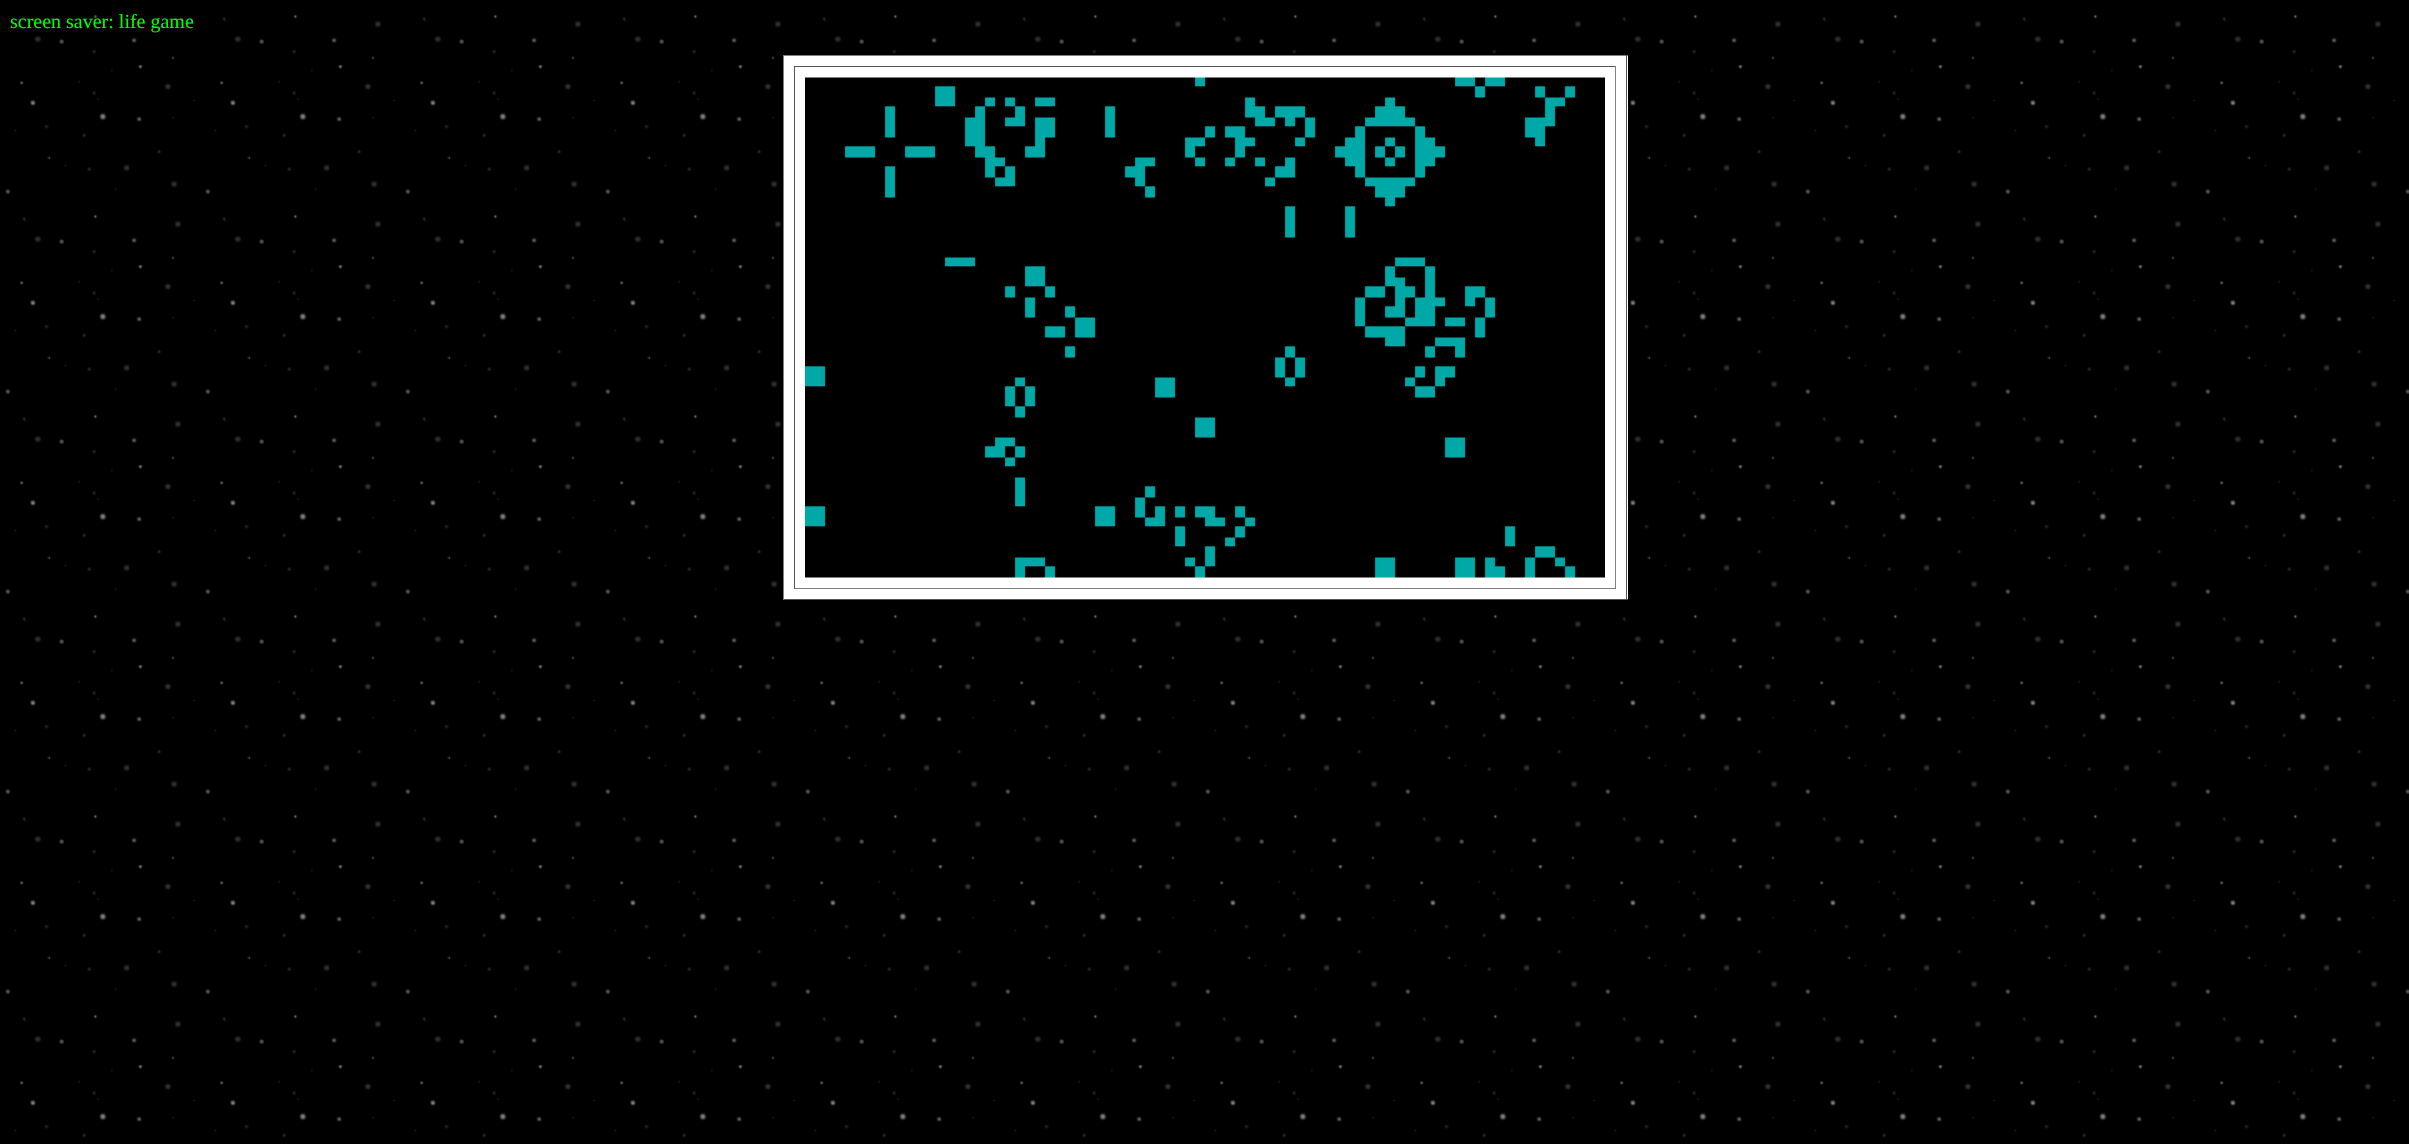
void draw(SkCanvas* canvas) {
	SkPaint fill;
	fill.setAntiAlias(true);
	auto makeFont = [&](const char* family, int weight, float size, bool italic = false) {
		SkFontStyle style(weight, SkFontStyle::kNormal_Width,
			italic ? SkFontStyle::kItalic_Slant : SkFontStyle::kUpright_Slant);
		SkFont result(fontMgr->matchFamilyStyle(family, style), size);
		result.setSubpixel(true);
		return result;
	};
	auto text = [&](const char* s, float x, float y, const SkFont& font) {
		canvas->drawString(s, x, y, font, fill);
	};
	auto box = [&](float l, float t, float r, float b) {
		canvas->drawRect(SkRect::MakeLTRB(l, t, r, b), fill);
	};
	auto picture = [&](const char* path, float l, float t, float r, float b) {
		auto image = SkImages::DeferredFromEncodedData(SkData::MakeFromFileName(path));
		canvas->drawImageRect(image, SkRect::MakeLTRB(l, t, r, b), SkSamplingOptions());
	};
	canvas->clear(0xFF000000);
	picture("image0.png", 5, 15, 2409, 1138);
	fill.setColor(0xFFFFFFFF);
	box(784, 56, 1628, 599);
	fill.setColor(0xFF808080);
	box(783, 55, 1628, 56);
	fill.setColor(0xFF555555);
	box(1626, 55, 1627, 600);
	box(783, 599, 1628, 600);
	fill.setColor(0xFF808080);
	box(783, 55, 784, 600);
	fill.setColor(0xFF555555);
	box(794, 66, 1616, 67);
	fill.setColor(0xFF808080);
	box(1615, 66, 1616, 589);
	box(794, 588, 1616, 589);
	fill.setColor(0xFF555555);
	box(794, 66, 795, 589);
	picture("image1.png", 805, 77, 1605, 578);
	auto font1 = makeFont("Liberation Serif", 400, 20);
	fill.setColor(0xFF00FF00);
	text("screen saver: life game", 10, 28, font1);
}
